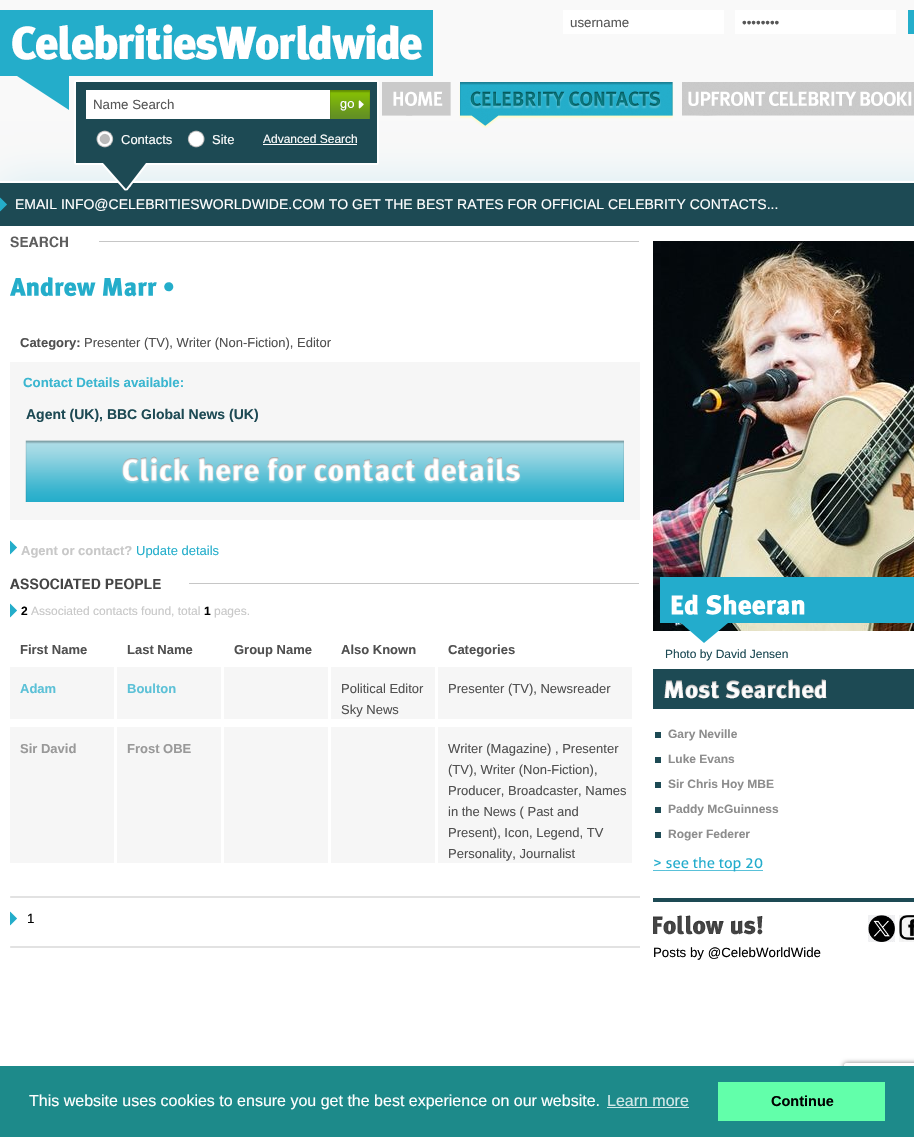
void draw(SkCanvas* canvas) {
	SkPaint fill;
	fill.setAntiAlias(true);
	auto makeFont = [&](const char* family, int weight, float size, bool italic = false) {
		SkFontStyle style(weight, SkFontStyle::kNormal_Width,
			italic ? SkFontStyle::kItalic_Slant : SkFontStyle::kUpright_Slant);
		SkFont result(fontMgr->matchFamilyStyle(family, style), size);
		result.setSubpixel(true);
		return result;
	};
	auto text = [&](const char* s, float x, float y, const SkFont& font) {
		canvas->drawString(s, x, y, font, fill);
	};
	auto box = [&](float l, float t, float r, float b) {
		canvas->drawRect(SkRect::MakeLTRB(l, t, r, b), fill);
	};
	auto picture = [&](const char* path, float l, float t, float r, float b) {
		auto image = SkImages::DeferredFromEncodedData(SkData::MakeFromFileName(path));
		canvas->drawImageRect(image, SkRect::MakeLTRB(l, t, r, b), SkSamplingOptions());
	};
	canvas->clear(0xFFF9F9F9);
	picture("image0.png", 0, 10, 433, 110);
	fill.setColor(0xFFFFFFFF);
	box(563, 10, 724, 34);
	box(735, 10, 896, 34);
	fill.setColor(0xFF24AECB);
	box(908, 10, 914, 34);
	fill.setColor(0xFFD7EDF3);
	fill.setMaskFilter(SkMaskFilter::MakeBlur(kNormal_SkBlurStyle, 20));
	canvas->drawRect(SkRect::MakeLTRB(0, 181, 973, 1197), fill);
	fill.setMaskFilter(nullptr);
	fill.setColor(0xFFFFFFFF);
	box(0, 181, 914, 1066);
	picture("image8.png", 0, 183, 914, 226);
	picture("image1.png", 74, 80, 379, 191);
	box(86, 90, 330, 119);
	picture("image2.png", 330, 90, 370, 119);
	picture("image3.png", 96, 130, 114, 148);
	picture("image4.png", 187, 130, 205, 148);
	box(263, 144, 357, 145);
	picture("image5.png", 382, 82, 451, 116);
	picture("image6.png", 459, 82, 674, 128);
	picture("image7.png", 682, 82, 914, 116);
	picture("image9.png", 10, 236, 639, 248);
	picture("image10.png", 10, 277, 96, 297);
	picture("image11.png", 102, 278, 157, 297);
	picture("image12.png", 164, 282, 174, 292);
	fill.setColor(0xFFF6F6F6);
	box(10, 362, 640, 520);
	picture("image13.png", 25, 440, 624, 502);
	picture("image14.png", 10, 540, 17, 555);
	picture("image15.png", 10, 578, 639, 590);
	picture("image14.png", 10, 603, 17, 618);
	box(10, 667, 632, 719);
	fill.setColor(0xFFFFFFFF);
	box(114, 667, 117, 727);
	box(221, 667, 224, 727);
	box(328, 667, 331, 727);
	box(435, 667, 438, 727);
	fill.setColor(0xFFF6F6F6);
	box(10, 727, 632, 863);
	fill.setColor(0xFFFFFFFF);
	box(114, 727, 117, 871);
	box(221, 727, 224, 871);
	box(328, 727, 331, 871);
	box(435, 727, 438, 871);
	picture("image16.png", 10, 896, 640, 898);
	picture("image14.png", 10, 911, 17, 926);
	picture("image16.png", 10, 946, 640, 948);
	picture("image17.png", 653, 241, 914, 631);
	picture("image18.png", 660, 577, 914, 643);
	picture("image19.png", 671, 594, 698, 615);
	picture("image20.png", 706, 594, 805, 615);
	picture("image21.png", 653, 669, 914, 709);
	fill.setColor(0xFF1D4A54);
	box(655, 732, 661, 738);
	box(655, 757, 661, 763);
	box(655, 782, 661, 788);
	box(655, 807, 661, 813);
	box(655, 832, 661, 838);
	picture("image22.png", 653, 857, 763, 872);
	box(653, 898, 914, 902);
	picture("image23.png", 653, 915, 763, 935);
	picture("image24.png", 868, 915, 895, 942);
	picture("image25.png", 899, 915, 914, 942);
	canvas->save();
	canvas->clipPath(SkPathBuilder(SkPathFillType::kEvenOdd).moveTo(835, 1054).lineTo(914, 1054).lineTo(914, 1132).lineTo(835, 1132).close().moveTo(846, 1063).lineTo(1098, 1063).cubicTo(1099, 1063, 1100, 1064, 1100, 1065).lineTo(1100, 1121).cubicTo(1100, 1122, 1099, 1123, 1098, 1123).lineTo(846, 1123).cubicTo(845, 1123, 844, 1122, 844, 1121).lineTo(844, 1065).cubicTo(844, 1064, 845, 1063, 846, 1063).close().detach(), true);
	fill.setColor(0xFF808080);
	fill.setMaskFilter(SkMaskFilter::MakeBlur(kNormal_SkBlurStyle, 2.5f));
	canvas->drawRoundRect(SkRect::MakeLTRB(844, 1063, 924, 1123), 2, 2, fill);
	fill.setMaskFilter(nullptr);
	canvas->restore();
	fill.setColor(0xFF1D8A8A);
	box(0, 1066, 914, 1137);
	fill.setColor(0xFFD2E8E8);
	box(607, 1107, 689, 1108);
	fill.setColor(0xFF62FFAA);
	box(718, 1082, 885, 1121);
	auto font1 = makeFont("Liberation Sans", 400, 13.3f);
	fill.setColor(0xFF575757);
	text("username", 570, 27, font1);
	text("••••••••", 742, 27, font1);
	text("Name Search", 93, 109, font1);
	auto font2 = makeFont("Liberation Sans", 400, 13);
	fill.setColor(0xFFFFFFFF);
	text("Contacts", 121, 144, font2);
	text("Site", 212, 144, font2);
	auto font3 = makeFont("Liberation Sans", 400, 12);
	text("Advanced Search", 263, 143, font3);
	auto font4 = makeFont("Liberation Sans", 400, 14);
	text("EMAIL INFO@CELEBRITIESWORLDWIDE.COM TO GET THE BEST RATES FOR OFFICIAL CELEBRITY CONTACTS...", 15, 209, font4);
	auto font5 = makeFont("Liberation Sans", 700, 13);
	fill.setColor(0xFF505050);
	text("Category:", 20, 347, font5);
	text("Presenter (TV), Writer (Non-Fiction), Editor", 84, 347, font2);
	auto font6 = makeFont("Liberation Sans", 700, 13.3f);
	fill.setColor(0xFF3BB6D0);
	text("Contact Details available:", 23, 387, font6);
	auto font7 = makeFont("Liberation Sans", 700, 14);
	fill.setColor(0xFF1D4A54);
	text("Agent (UK), BBC Global News (UK)", 26, 419, font7);
	fill.setColor(0xFFC8C8C8);
	text("Agent or contact?", 21, 555, font5);
	fill.setColor(0xFF24AECB);
	text("Update details", 136, 555, font2);
	auto font8 = makeFont("Liberation Sans", 700, 12);
	fill.setColor(0xFF000000);
	text("2", 21, 615, font8);
	fill.setColor(0xFFC8C8C8);
	text("Associated contacts found, total", 31, 615, font3);
	fill.setColor(0xFF000000);
	text("1", 204, 615, font8);
	fill.setColor(0xFFC8C8C8);
	text("pages.", 214, 615, font3);
	fill.setColor(0xFF505050);
	text("First Name", 20, 654, font5);
	text("Last Name", 127, 654, font5);
	text("Group Name", 234, 654, font5);
	text("Also Known", 341, 654, font5);
	text("Categories", 448, 654, font5);
	fill.setColor(0xFF5CC1D7);
	text("Adam", 20, 693, font5);
	text("Boulton", 127, 693, font5);
	fill.setColor(0xFF505050);
	text("Political Editor", 341, 693, font2);
	text("Sky News", 341, 714, font2);
	text("Presenter (TV), Newsreader", 448, 693, font2);
	fill.setColor(0xFF999999);
	text("Sir David", 20, 753, font5);
	text("Frost OBE", 127, 753, font5);
	fill.setColor(0xFF505050);
	text("Writer (Magazine) , Presenter", 448, 753, font2);
	text("(TV), Writer (Non-Fiction),", 448, 774, font2);
	text("Producer, Broadcaster, Names", 448, 795, font2);
	text("in the News ( Past and", 448, 816, font2);
	text("Present), Icon, Legend, TV", 448, 837, font2);
	text("Personality, Journalist", 448, 858, font2);
	fill.setColor(0xFF000000);
	text("1", 27, 923, font1);
	fill.setColor(0xFF1D4A54);
	text("Photo by David Jensen", 665, 658, font3);
	fill.setColor(0xFF8D8D8D);
	text("Gary Neville", 668, 738, font8);
	text("Luke Evans", 668, 763, font8);
	text("Sir Chris Hoy MBE", 668, 788, font8);
	text("Paddy McGuinness", 668, 813, font8);
	text("Roger Federer", 668, 838, font8);
	fill.setColor(0xFF000000);
	text("Posts by @CelebWorldWide", 653, 957, font1);
	auto font9 = makeFont("Liberation Sans", 400, 16);
	fill.setColor(0xFFFFFFFF);
	text("This website uses cookies to ensure you get the best experience on our website.", 29, 1106, font9);
	fill.setColor(0xFFD2E8E8);
	text("Learn more", 607, 1106, font9);
	auto font10 = makeFont("Liberation Sans", 700, 14.5f);
	fill.setColor(0xFF000000);
	text("Continue", 771, 1106, font10);
}
